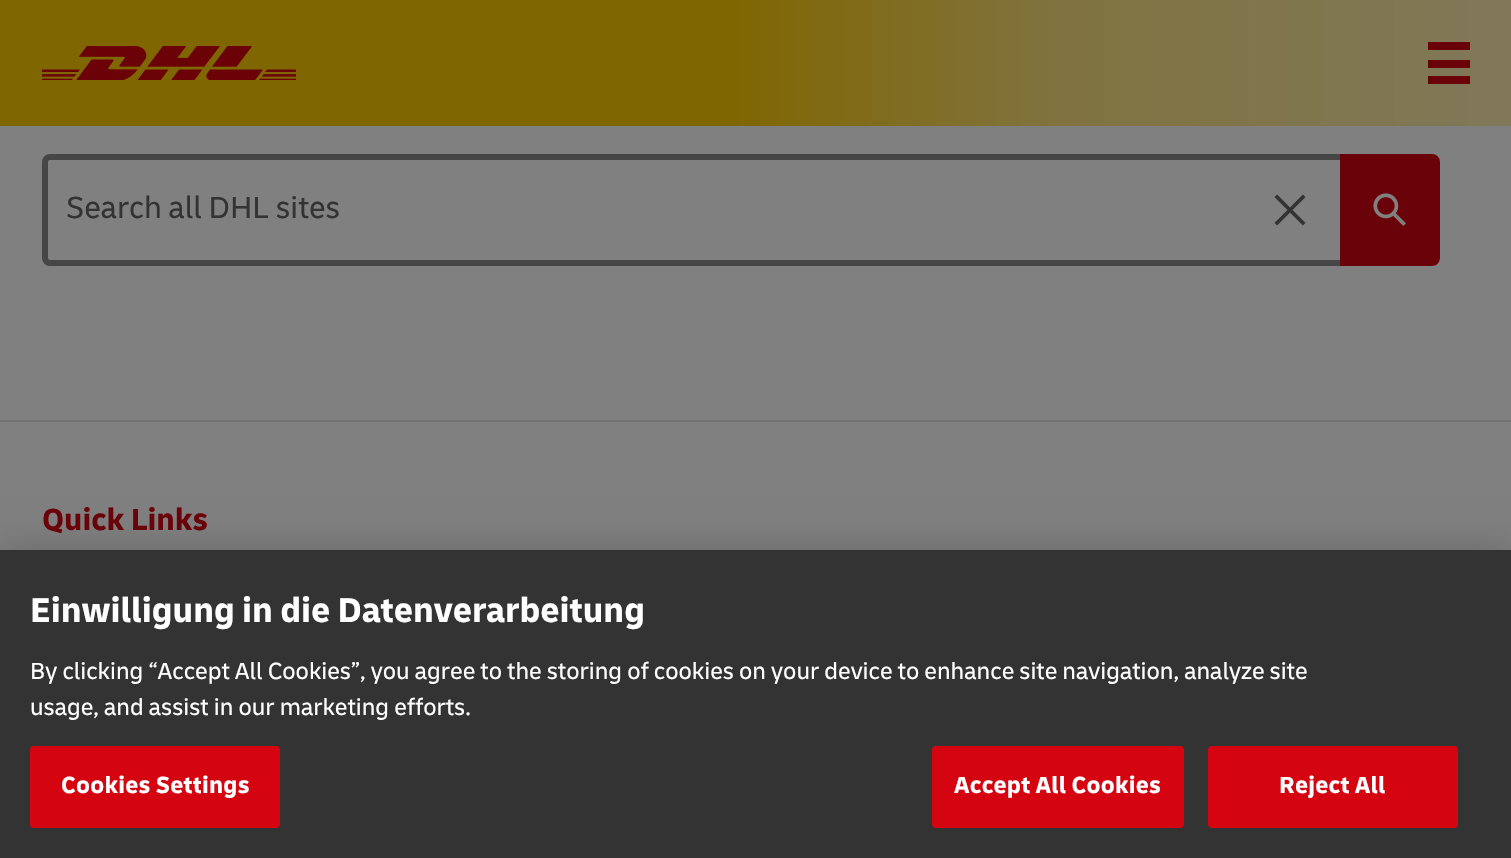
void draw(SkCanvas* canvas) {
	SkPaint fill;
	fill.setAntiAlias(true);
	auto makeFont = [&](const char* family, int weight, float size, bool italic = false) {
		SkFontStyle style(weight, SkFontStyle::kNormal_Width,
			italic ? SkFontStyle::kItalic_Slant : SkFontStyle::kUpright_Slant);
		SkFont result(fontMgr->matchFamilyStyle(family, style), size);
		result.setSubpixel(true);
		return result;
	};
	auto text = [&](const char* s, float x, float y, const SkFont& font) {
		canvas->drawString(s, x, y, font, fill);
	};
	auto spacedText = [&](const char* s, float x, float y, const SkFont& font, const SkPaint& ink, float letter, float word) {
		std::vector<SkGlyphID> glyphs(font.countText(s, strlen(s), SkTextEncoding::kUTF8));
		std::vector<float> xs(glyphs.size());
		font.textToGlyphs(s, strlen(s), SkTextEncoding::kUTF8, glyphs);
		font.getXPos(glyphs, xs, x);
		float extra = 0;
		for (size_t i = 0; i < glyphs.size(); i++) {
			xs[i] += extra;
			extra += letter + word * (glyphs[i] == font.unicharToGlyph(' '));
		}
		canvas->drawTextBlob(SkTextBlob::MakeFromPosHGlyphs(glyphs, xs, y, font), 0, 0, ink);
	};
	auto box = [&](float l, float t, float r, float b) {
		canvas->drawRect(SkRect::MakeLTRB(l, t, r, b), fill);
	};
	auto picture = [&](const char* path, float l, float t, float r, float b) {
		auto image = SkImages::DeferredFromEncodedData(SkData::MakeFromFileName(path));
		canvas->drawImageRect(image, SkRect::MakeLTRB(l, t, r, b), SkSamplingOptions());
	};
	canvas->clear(0xFF808080);
	{
		const SkColor colors[] = {0xFF806600, 0xFF806600, 0xFF807340, 0xFF807859};
		const float stops[] = {0, 0.48f, 0.7f, 1};
		const SkPoint ends[] = {{0, 63}, {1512, 63}};
		fill.setShader(SkGradientShader::MakeLinear(ends, colors, stops, 4, SkTileMode::kClamp));
		fill.setAlpha(255);
	}
	box(0, 0, 1511, 126);
	picture("image0.png", 42, 46, 296, 80);
	fill.setShader(nullptr);
	fill.setColor(0xFF6A0309);
	box(1428, 42, 1470, 50);
	box(1428, 60, 1470, 68);
	box(1428, 76, 1470, 84);
	fill.setStyle(SkPaint::kStroke_Style);
	fill.setStrokeWidth(6);
	fill.setColor(0xFF464646);
	canvas->drawPath(SkPathBuilder().moveTo(50, 157).lineTo(1349, 157).lineTo(1349, 263).lineTo(50, 263).cubicTo(47, 263, 45, 261, 45, 258).lineTo(45, 162).cubicTo(45, 159, 47, 157, 50, 157).close().detach(), fill);
	fill.setStyle(SkPaint::kFill_Style);
	fill.setColor(0xFF6A0309);
	canvas->drawPath(SkPathBuilder().moveTo(1341, 155).lineTo(1432, 155).cubicTo(1436, 155, 1439, 158, 1439, 162).lineTo(1439, 258).cubicTo(1439, 262, 1436, 265, 1432, 265).lineTo(1341, 265).close().detach(), fill);
	fill.setStyle(SkPaint::kStroke_Style);
	fill.setStrokeWidth(2);
	canvas->drawPath(SkPathBuilder().moveTo(1341, 155).lineTo(1432, 155).cubicTo(1436, 155, 1439, 158, 1439, 162).lineTo(1439, 258).cubicTo(1439, 262, 1436, 265, 1432, 265).lineTo(1341, 265).close().detach(), fill);
	picture("image1.png", 1373, 193, 1406, 226);
	picture("image2.png", 1274, 194, 1306, 226);
	fill.setStyle(SkPaint::kFill_Style);
	fill.setColor(0xFF737373);
	box(0, 420, 1511, 422);
	fill.setColor(0x33000000);
	fill.setMaskFilter(SkMaskFilter::MakeBlur(kNormal_SkBlurStyle, 18));
	canvas->drawRect(SkRect::MakeLTRB(0, 550, 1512, 858), fill);
	fill.setMaskFilter(nullptr);
	fill.setColor(0xFF333333);
	box(0, 550, 1511, 858);
	fill.setColor(0xFFD40511);
	canvas->drawRoundRect(SkRect::MakeLTRB(31, 747, 279, 827), 3, 3, fill);
	fill.setStyle(SkPaint::kStroke_Style);
	canvas->drawRoundRect(SkRect::MakeLTRB(31, 747, 279, 827), 3, 3, fill);
	fill.setStyle(SkPaint::kFill_Style);
	canvas->drawRoundRect(SkRect::MakeLTRB(933, 747, 1183, 827), 3, 3, fill);
	fill.setStyle(SkPaint::kStroke_Style);
	canvas->drawRoundRect(SkRect::MakeLTRB(933, 747, 1183, 827), 3, 3, fill);
	fill.setStyle(SkPaint::kFill_Style);
	canvas->drawRoundRect(SkRect::MakeLTRB(1209, 747, 1457, 827), 3, 3, fill);
	fill.setStyle(SkPaint::kStroke_Style);
	canvas->drawRoundRect(SkRect::MakeLTRB(1209, 747, 1457, 827), 3, 3, fill);
	auto font1 = makeFont("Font", 400, 32);
	fill.setStyle(SkPaint::kFill_Style);
	fill.setColor(0xFF333333);
	text("Search all DHL sites", 66, 218, font1);
	auto font2 = makeFont("Font", 700, 32);
	fill.setColor(0xFF6A0309);
	text("Quick Links", 42, 530, font2);
	auto font3 = makeFont("Font", 700, 36);
	fill.setColor(0xFFFFFFFF);
	text("Einwilligung in die Datenverarbeitung", 30, 622, font3);
	auto font4 = makeFont("Font", 400, 24.4f);
	text("By clicking “Accept All Cookies”, you agree to the storing of cookies on your device to enhance site navigation, analyze site", 30, 679, font4);
	text("usage, and assist in our marketing efforts.", 30, 715, font4);
	auto font5 = makeFont("Font", 700, 24.4f);
	spacedText("Cookies Settings", 61, 793, font5, fill, 0.25f, 0);
	spacedText("Accept All Cookies", 954, 793, font5, fill, 0.25f, 0);
	spacedText("Reject All", 1279, 793, font5, fill, 0.25f, 0);
}
